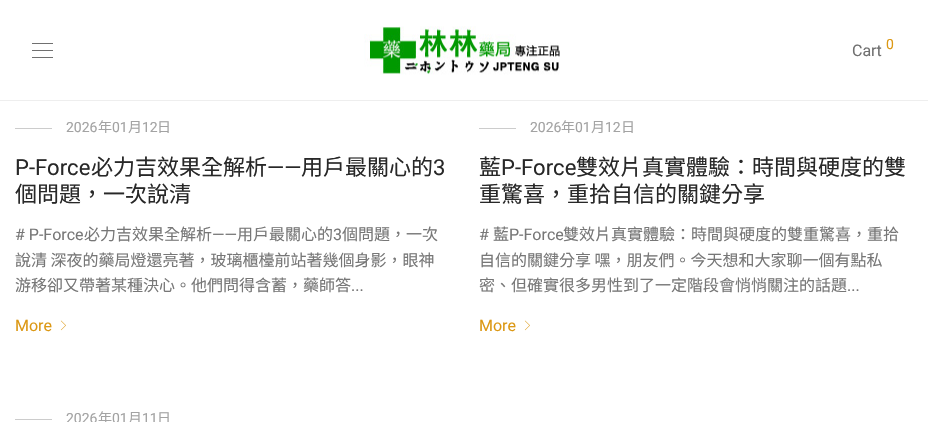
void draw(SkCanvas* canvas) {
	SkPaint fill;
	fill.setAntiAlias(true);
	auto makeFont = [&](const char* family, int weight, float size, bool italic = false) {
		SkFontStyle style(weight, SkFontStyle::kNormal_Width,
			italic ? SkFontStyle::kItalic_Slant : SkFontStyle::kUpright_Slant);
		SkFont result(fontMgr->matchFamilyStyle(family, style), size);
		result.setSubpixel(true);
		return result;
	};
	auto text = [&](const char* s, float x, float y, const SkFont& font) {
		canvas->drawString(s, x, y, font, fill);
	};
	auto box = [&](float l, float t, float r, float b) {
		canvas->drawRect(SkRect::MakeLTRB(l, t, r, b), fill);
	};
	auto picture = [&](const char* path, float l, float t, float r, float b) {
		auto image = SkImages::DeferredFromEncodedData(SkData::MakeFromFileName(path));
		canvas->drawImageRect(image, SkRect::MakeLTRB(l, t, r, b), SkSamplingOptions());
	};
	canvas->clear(0xFFFFFFFF);
	fill.setColor(0xFFEEEEEE);
	box(0, 100, 928, 101);
	picture("image0.png", 364, 26, 560, 75);
	fill.setColor(0xFF707070);
	box(32, 43, 53, 44);
	box(32, 50, 53, 51);
	box(32, 57, 53, 58);
	fill.setColor(0xFFCCCCCC);
	box(15, 128, 52, 129);
	picture("image1.png", 60, 320, 66, 331);
	box(479, 128, 516, 129);
	picture("image1.png", 524, 320, 530, 331);
	box(15, 419, 52, 420);
	auto font1 = makeFont("Roboto", 400, 16);
	fill.setColor(0xFF707070);
	text("Cart", 852, 56, font1);
	auto font2 = makeFont("Roboto", 400, 14);
	fill.setColor(0xFFDC9814);
	text("0", 886, 49, font2);
	fill.setColor(0xFFA3A3A3);
	text("2026", 66, 132, font2);
	auto font3 = makeFont("Noto Sans CJK TC", 400, 14);
	text("年", 98, 132, font3);
	text("01", 112, 132, font2);
	text("月", 128, 132, font3);
	text("12", 142, 132, font2);
	text("日", 157, 132, font3);
	auto font4 = makeFont("Roboto", 400, 22);
	fill.setColor(0xFF282828);
	text("P-Force", 15, 175, font4);
	auto font5 = makeFont("Noto Sans CJK TC", 400, 22);
	text("必力吉效果全解析", 91, 175, font5);
	text("——", 267, 175, font4);
	text("用戶最關心的", 301, 175, font5);
	text("3", 433, 175, font4);
	text("個問題，一次說清", 15, 202, font5);
	fill.setColor(0xFF777777);
	text("# P-Force", 15, 240, font1);
	auto font6 = makeFont("Noto Sans CJK TC", 400, 16);
	text("必力吉效果全解析", 84, 240, font6);
	text("——", 212, 240, font1);
	text("用戶最關心的", 237, 240, font6);
	text("3", 333, 240, font1);
	text("個問題，一次", 342, 240, font6);
	text("說清 深夜的藥局燈還亮著，玻璃櫃檯前站著幾個身影，眼神", 15, 266, font6);
	text("游移卻又帶著某種決心。他們問得含蓄，藥師答", 15, 291, font6);
	text("...", 351, 291, font1);
	fill.setColor(0xFFDC9814);
	text("More", 15, 331, font1);
	fill.setColor(0xFFA3A3A3);
	text("2026", 530, 132, font2);
	text("年", 561, 132, font3);
	text("01", 575, 132, font2);
	text("月", 591, 132, font3);
	text("12", 605, 132, font2);
	text("日", 621, 132, font3);
	fill.setColor(0xFF282828);
	text("藍", 479, 175, font5);
	text("P-Force", 501, 175, font4);
	text("雙效片真實體驗：時間與硬度的雙", 576, 175, font5);
	text("重驚喜，重拾自信的關鍵分享", 479, 202, font5);
	fill.setColor(0xFF777777);
	text("#", 479, 240, font1);
	text("藍", 493, 240, font6);
	text("P-Force", 509, 240, font1);
	text("雙效片真實體驗：時間與硬度的雙重驚喜，重拾", 563, 240, font6);
	text("自信的關鍵分享 嘿，朋友們。今天想和大家聊一個有點私", 479, 266, font6);
	text("密、但確實很多男性到了一定階段會悄悄關注的話題", 479, 291, font6);
	text("...", 847, 291, font1);
	fill.setColor(0xFFDC9814);
	text("More", 479, 331, font1);
	fill.setColor(0xFFA3A3A3);
	text("2026", 66, 423, font2);
	text("年", 98, 423, font3);
	text("01", 112, 423, font2);
	text("月", 128, 423, font3);
	text("11", 142, 423, font2);
	text("日", 157, 423, font3);
}
